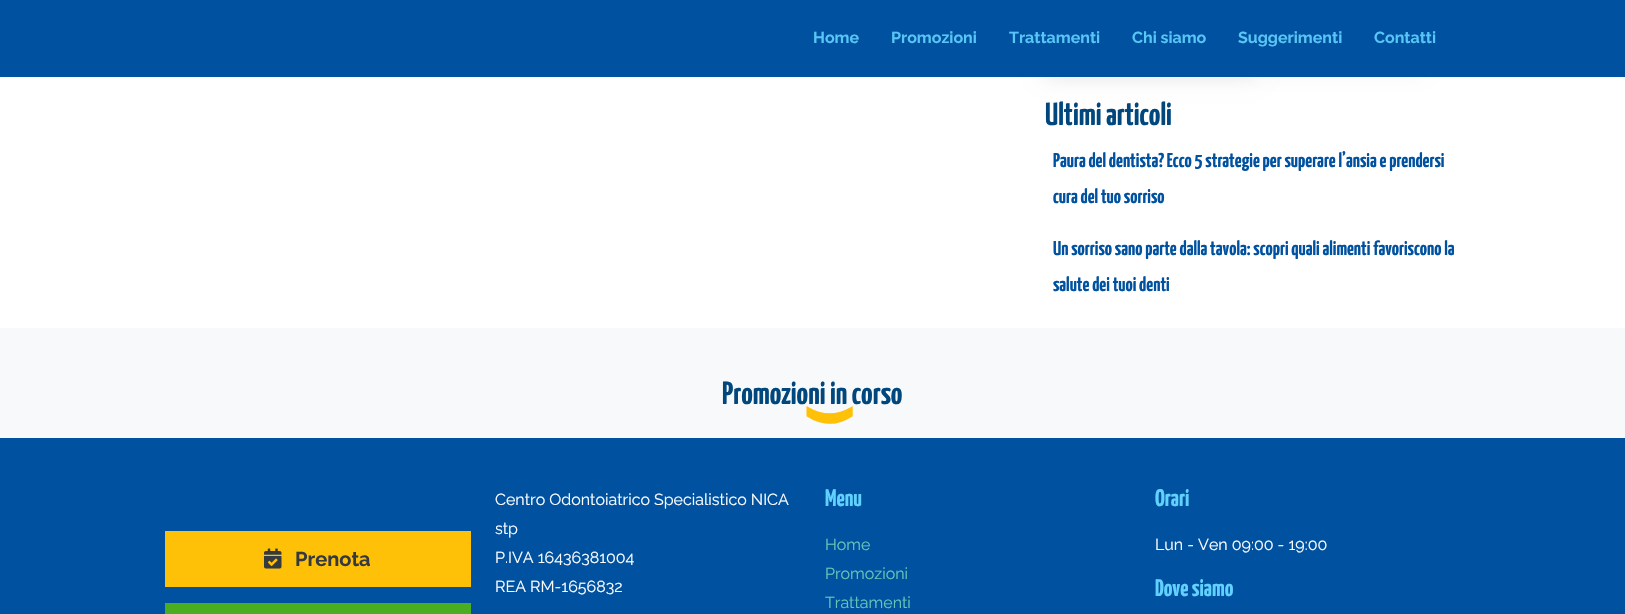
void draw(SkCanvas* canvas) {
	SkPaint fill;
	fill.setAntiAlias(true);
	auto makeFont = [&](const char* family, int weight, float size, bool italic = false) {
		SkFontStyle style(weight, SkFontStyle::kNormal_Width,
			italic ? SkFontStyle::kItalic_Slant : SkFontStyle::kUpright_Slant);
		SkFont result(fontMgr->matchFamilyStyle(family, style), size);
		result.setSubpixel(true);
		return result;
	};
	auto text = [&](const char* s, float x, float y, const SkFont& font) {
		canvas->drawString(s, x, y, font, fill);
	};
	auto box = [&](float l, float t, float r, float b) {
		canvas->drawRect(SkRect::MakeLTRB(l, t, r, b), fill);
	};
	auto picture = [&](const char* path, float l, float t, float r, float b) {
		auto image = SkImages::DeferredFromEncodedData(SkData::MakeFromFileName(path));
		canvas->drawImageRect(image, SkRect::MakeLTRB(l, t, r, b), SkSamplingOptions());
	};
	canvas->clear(0xFFFFFFFF);
	fill.setColor(0xFFDDDDDD);
	fill.setMaskFilter(SkMaskFilter::MakeBlur(kNormal_SkBlurStyle, 10));
	canvas->drawRect(SkRect::MakeLTRB(1045, 7, 1256, 75), fill);
	fill.setMaskFilter(nullptr);
	fill.setMaskFilter(SkMaskFilter::MakeBlur(kNormal_SkBlurStyle, 10));
	canvas->drawRect(SkRect::MakeLTRB(1264, 12, 1420, 68), fill);
	fill.setMaskFilter(nullptr);
	fill.setColor(0xFF00519F);
	box(0, 0, 1625, 77);
	fill.setColor(0xFFF8F9FA);
	box(0, 328, 1625, 438);
	fill.setColor(0xFF00519F);
	box(0, 438, 1625, 614);
	fill.setColor(0xFFFFC107);
	box(165, 531, 471, 587);
	picture("image0.png", 264, 548, 282, 569);
	fill.setColor(0xFF4AAE20);
	box(165, 603, 471, 614);
	auto font1 = makeFont("Raleway", 700, 16);
	fill.setColor(0xFF57C5F5);
	text("Home", 813, 43, font1);
	text("Promozioni", 891, 43, font1);
	text("Trattamenti", 1009, 43, font1);
	text("Chi siamo", 1132, 43, font1);
	text("Suggerimenti", 1238, 43, font1);
	text("Contatti", 1374, 43, font1);
	auto font2 = makeFont("Yanone Kaffeesatz", 200, 32);
	fill.setColor(0xFF00477E);
	text("Ultimi articoli", 1045, 125, font2);
	auto font3 = makeFont("Yanone Kaffeesatz", 200, 20);
	fill.setColor(0xFF00519F);
	text("Paura del dentista? Ecco 5 strategie per superare l’ansia e prendersi", 1053, 167, font3);
	text("cura del tuo sorriso", 1053, 203, font3);
	text("Un sorriso sano parte dalla tavola: scopri quali alimenti favoriscono la", 1053, 255, font3);
	text("salute dei tuoi denti", 1053, 291, font3);
	fill.setColor(0xFF00477E);
	text("Promozioni in corso", 722, 404, font2);
	auto font4 = makeFont("DejaVu Sans", 700, 50);
	fill.setColor(0xFFFFC107);
	canvas->save();
	canvas->rotate(-90, 846, 437);
	text("❪", 846, 437, font4);
	canvas->restore();
	auto font5 = makeFont("Raleway", 700, 20);
	fill.setColor(0xFF343A40);
	text("Prenota", 295, 566, font5);
	auto font6 = makeFont("Raleway", 400, 16);
	fill.setColor(0xFFFFFFFF);
	text("Centro Odontoiatrico Specialistico NICA", 495, 505, font6);
	text("stp", 495, 534, font6);
	text("P.IVA 16436381004", 495, 563, font6);
	text("REA RM-1656832", 495, 592, font6);
	auto font7 = makeFont("Yanone Kaffeesatz", 200, 24);
	fill.setColor(0xFF61D2FF);
	text("Menu", 825, 506, font7);
	fill.setColor(0xFF64C5B8);
	text("Home", 825, 550, font6);
	text("Promozioni", 825, 579, font6);
	text("Trattamenti", 825, 608, font6);
	fill.setColor(0xFF61D2FF);
	text("Orari", 1155, 506, font7);
	fill.setColor(0xFFFFFFFF);
	text("Lun - Ven 09:00 - 19:00", 1155, 550, font6);
	fill.setColor(0xFF61D2FF);
	text("Dove siamo", 1155, 596, font7);
}
